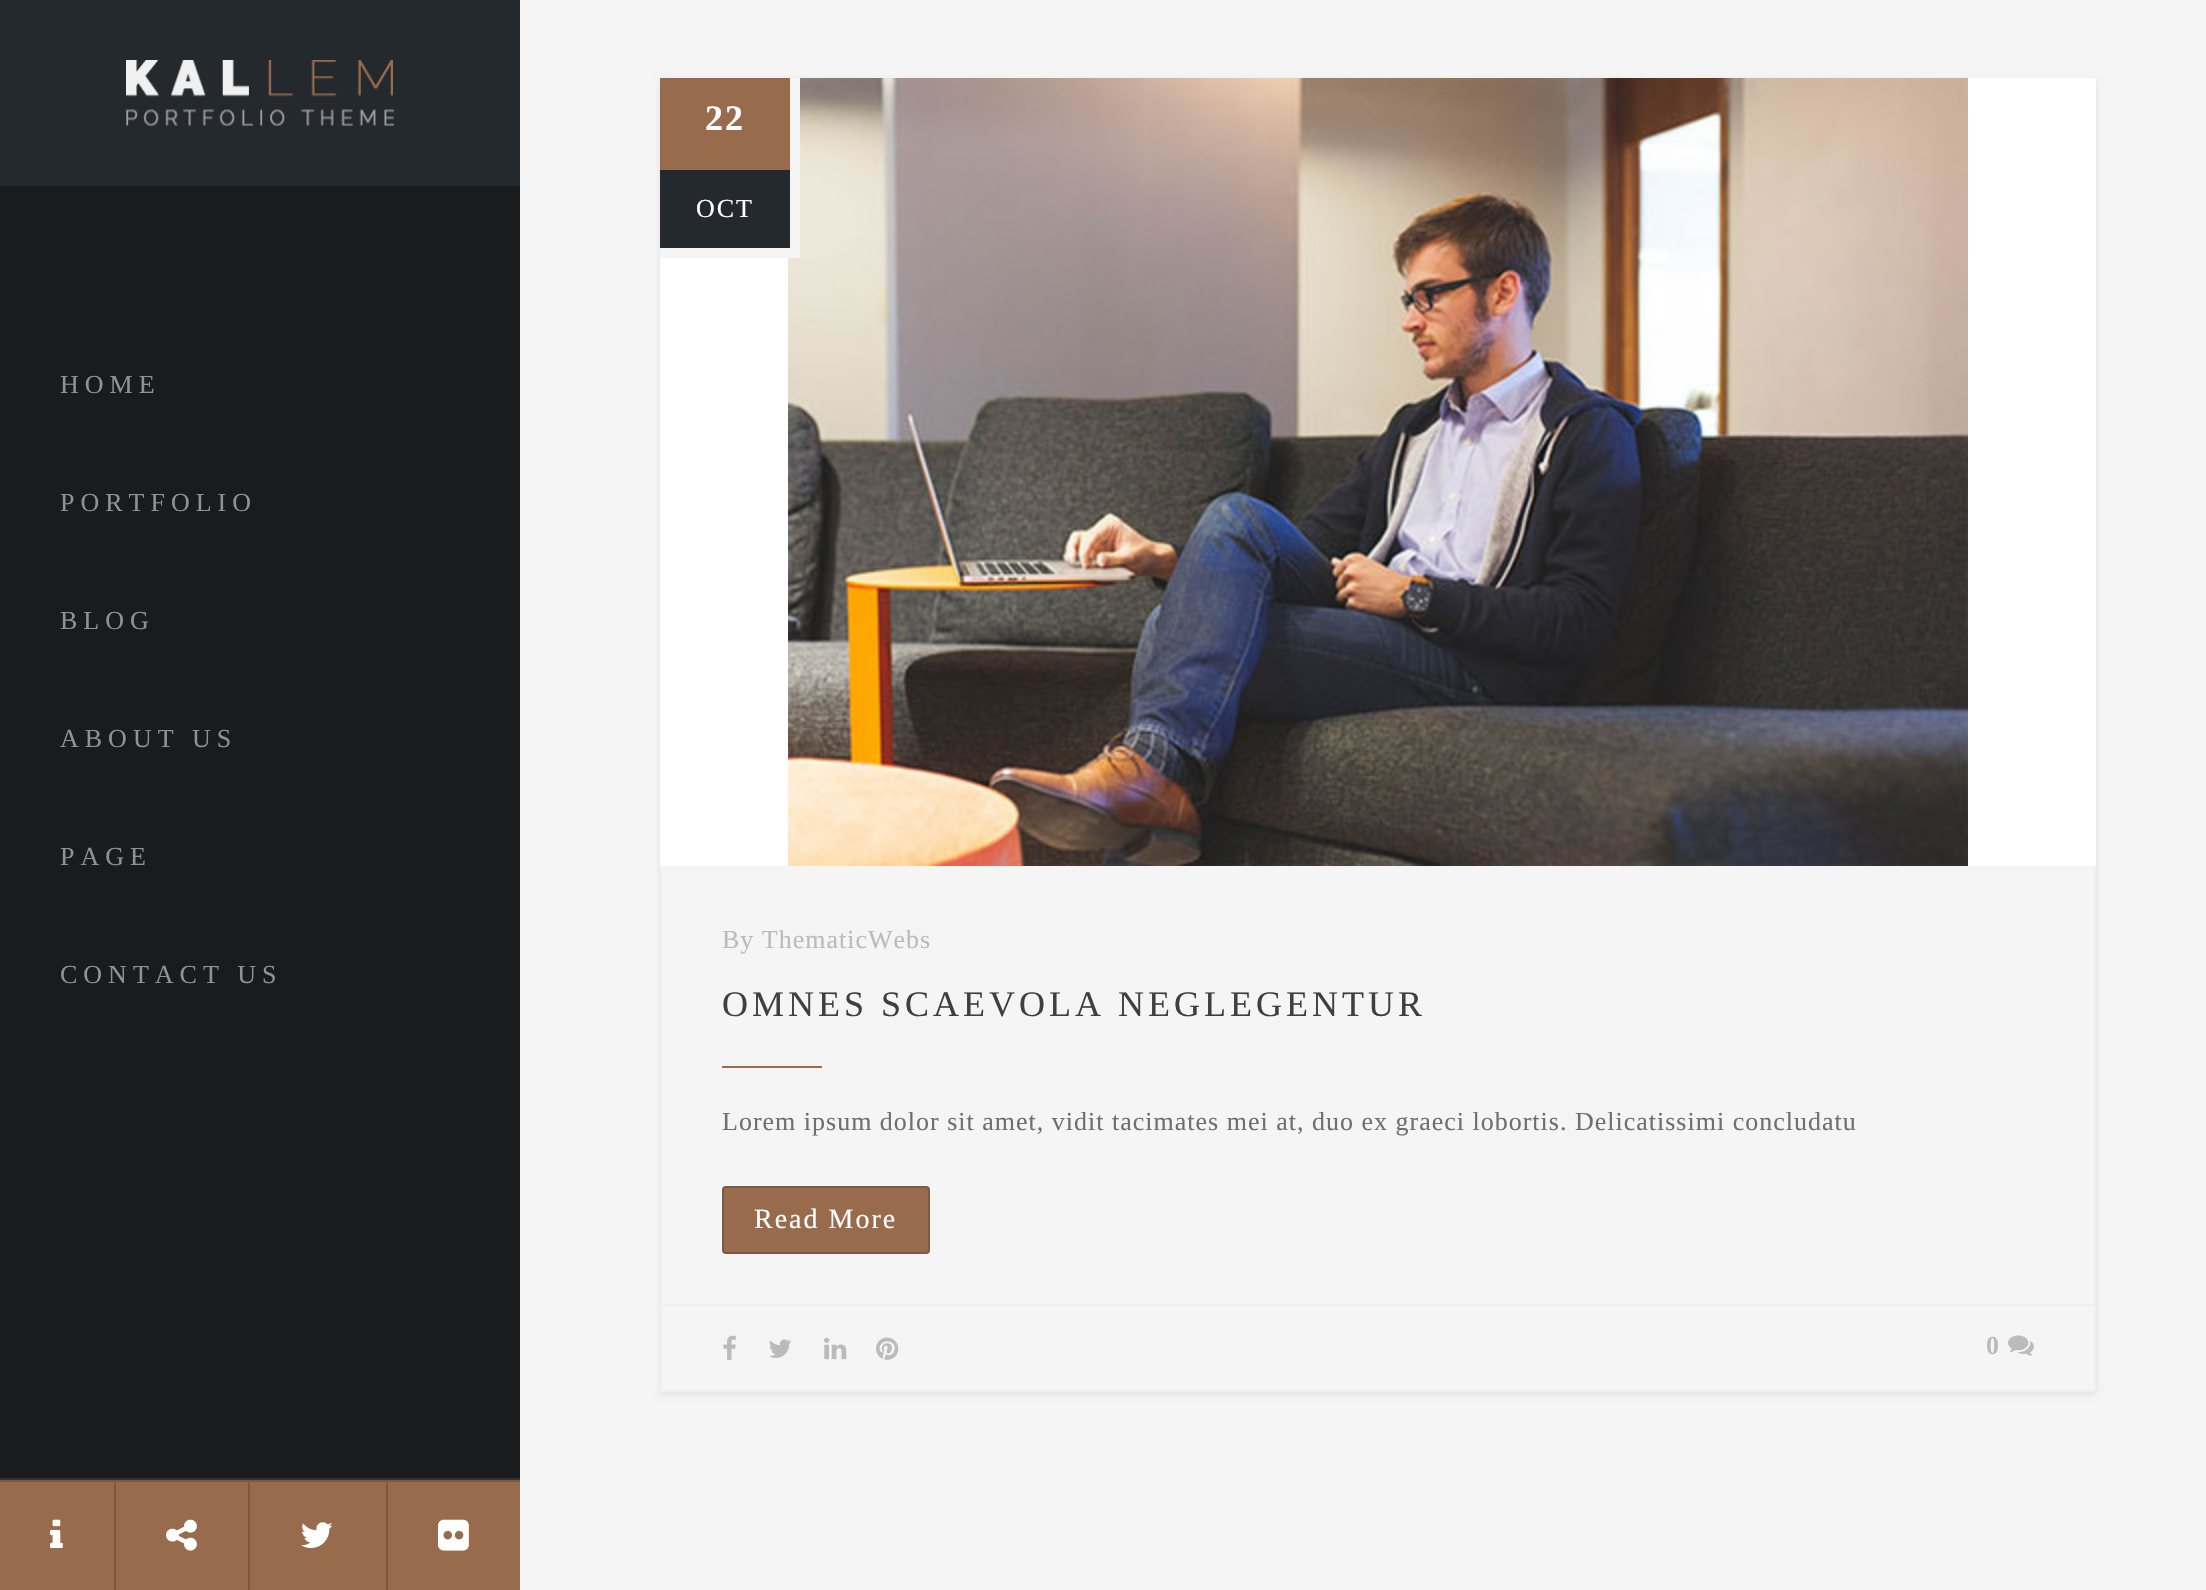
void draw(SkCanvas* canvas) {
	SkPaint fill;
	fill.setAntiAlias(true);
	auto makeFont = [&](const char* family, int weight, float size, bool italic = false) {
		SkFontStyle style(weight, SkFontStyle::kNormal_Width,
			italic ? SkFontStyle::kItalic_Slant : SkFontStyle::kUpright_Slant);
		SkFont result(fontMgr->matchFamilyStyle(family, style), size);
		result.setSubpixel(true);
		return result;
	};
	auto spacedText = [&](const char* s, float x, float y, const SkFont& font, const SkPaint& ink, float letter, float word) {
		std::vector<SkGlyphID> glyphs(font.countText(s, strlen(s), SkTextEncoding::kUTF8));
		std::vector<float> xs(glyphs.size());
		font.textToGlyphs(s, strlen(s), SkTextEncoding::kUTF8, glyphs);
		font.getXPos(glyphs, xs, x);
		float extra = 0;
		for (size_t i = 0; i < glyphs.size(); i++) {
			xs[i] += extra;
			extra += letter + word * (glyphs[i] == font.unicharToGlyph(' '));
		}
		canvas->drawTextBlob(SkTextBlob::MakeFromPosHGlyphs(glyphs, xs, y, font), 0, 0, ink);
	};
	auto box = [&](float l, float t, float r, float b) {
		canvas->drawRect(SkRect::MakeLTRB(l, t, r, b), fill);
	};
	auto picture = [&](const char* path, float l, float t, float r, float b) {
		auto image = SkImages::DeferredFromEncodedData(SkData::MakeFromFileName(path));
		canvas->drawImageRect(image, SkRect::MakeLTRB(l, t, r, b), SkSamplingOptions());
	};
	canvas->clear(0xFFF5F5F5);
	fill.setColor(0xFF191B1C);
	box(0, 186, 520, 1478);
	fill.setColor(0xFF24292E);
	box(0, 0, 520, 186);
	picture("image0.png", 126, 60, 394, 126);
	fill.setColor(0xFF333333);
	box(0, 1478, 520, 1480);
	fill.setColor(0xFF986B4D);
	box(0, 1482, 114, 1590);
	fill.setColor(0xFF7D5941);
	box(0, 1480, 520, 1482);
	picture("image1.png", 50, 1519, 63, 1548);
	fill.setColor(0xFF986B4D);
	box(116, 1482, 248, 1590);
	fill.setColor(0xFF7D5941);
	box(114, 1480, 116, 1590);
	picture("image2.png", 166, 1519, 197, 1551);
	fill.setColor(0xFF986B4D);
	box(250, 1482, 386, 1590);
	fill.setColor(0xFF7D5941);
	box(248, 1480, 250, 1590);
	picture("image3.png", 301, 1522, 333, 1548);
	fill.setColor(0xFF986B4D);
	box(388, 1482, 520, 1590);
	fill.setColor(0xFF7D5941);
	box(386, 1480, 388, 1590);
	picture("image4.png", 438, 1519, 469, 1551);
	canvas->save();
	canvas->clipPath(SkPathBuilder(SkPathFillType::kEvenOdd).moveTo(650, 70).lineTo(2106, 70).lineTo(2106, 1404).lineTo(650, 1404).close().moveTo(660, 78).lineTo(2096, 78).lineTo(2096, 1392).lineTo(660, 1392).close().detach(), true);
	fill.setColor(0xFFE0E0E0);
	fill.setMaskFilter(SkMaskFilter::MakeBlur(kNormal_SkBlurStyle, 3));
	canvas->drawRect(SkRect::MakeLTRB(660, 80, 2096, 1394), fill);
	fill.setMaskFilter(nullptr);
	canvas->restore();
	fill.setColor(0xFFFFFFFF);
	box(660, 78, 2096, 866);
	picture("image5.png", 788, 78, 1968, 866);
	fill.setColor(0xFFF5F5F5);
	box(790, 78, 800, 248);
	box(660, 248, 800, 258);
	fill.setColor(0xFF986B4D);
	box(660, 78, 790, 170);
	fill.setColor(0xFF24292E);
	box(660, 170, 790, 248);
	fill.setColor(0xFFEFEFEF);
	box(2094, 866, 2096, 1304);
	box(660, 866, 662, 1304);
	fill.setColor(0xFF986B4D);
	box(722, 1066, 822, 1068);
	canvas->drawRoundRect(SkRect::MakeLTRB(723, 1187, 929, 1253), 3, 3, fill);
	fill.setStyle(SkPaint::kStroke_Style);
	fill.setStrokeWidth(2);
	fill.setColor(0xFF7D5941);
	canvas->drawRoundRect(SkRect::MakeLTRB(723, 1187, 929, 1253), 3, 3, fill);
	fill.setColor(0xFFEFEFEF);
	canvas->drawRect(SkRect::MakeLTRB(661, 1305, 2095, 1391), fill);
	picture("image6.png", 723, 1335, 736, 1360);
	picture("image7.png", 769, 1339, 792, 1358);
	picture("image8.png", 824, 1337, 847, 1360);
	picture("image9.png", 876, 1337, 899, 1360);
	picture("image10.png", 2008, 1335, 2034, 1356);
	auto font1 = makeFont("Liberation Serif", 400, 26);
	fill.setStyle(SkPaint::kFill_Style);
	fill.setColor(0xFF919191);
	spacedText("HOME", 60, 393, font1, fill, 6, 0);
	spacedText("PORTFOLIO", 60, 511, font1, fill, 6, 0);
	spacedText("BLOG", 60, 629, font1, fill, 6, 0);
	spacedText("ABOUT US", 60, 747, font1, fill, 6, 0);
	spacedText("PAGE", 60, 865, font1, fill, 6, 0);
	spacedText("CONTACT US", 60, 983, font1, fill, 6, 0);
	auto font2 = makeFont("Liberation Serif", 700, 36);
	fill.setColor(0xFFFFFFFF);
	spacedText("22", 705, 130, font2, fill, 2, 0);
	spacedText("OCT", 696, 217, font1, fill, 2, 0);
	fill.setColor(0xFFBBBBBB);
	spacedText("By ThematicWebs", 722, 948, font1, fill, 1, 0);
	auto font3 = makeFont("Liberation Serif", 400, 36);
	fill.setColor(0xFF3F3F3F);
	spacedText("OMNES SCAEVOLA NEGLEGENTUR", 722, 1016, font3, fill, 4, 0);
	fill.setColor(0xFF6F6F6F);
	spacedText("Lorem ipsum dolor sit amet, vidit tacimates mei at, duo ex graeci lobortis. Delicatissimi concludatu", 722, 1130, font1, fill, 1, 0);
	auto font4 = makeFont("Liberation Serif", 400, 28);
	fill.setColor(0xFFFFFFFF);
	spacedText("Read More", 754, 1228, font4, fill, 2, 0);
	auto font5 = makeFont("Liberation Serif", 700, 26);
	fill.setColor(0xFFBBBBBB);
	spacedText("0", 1986, 1354, font5, fill, 1, 0);
}
